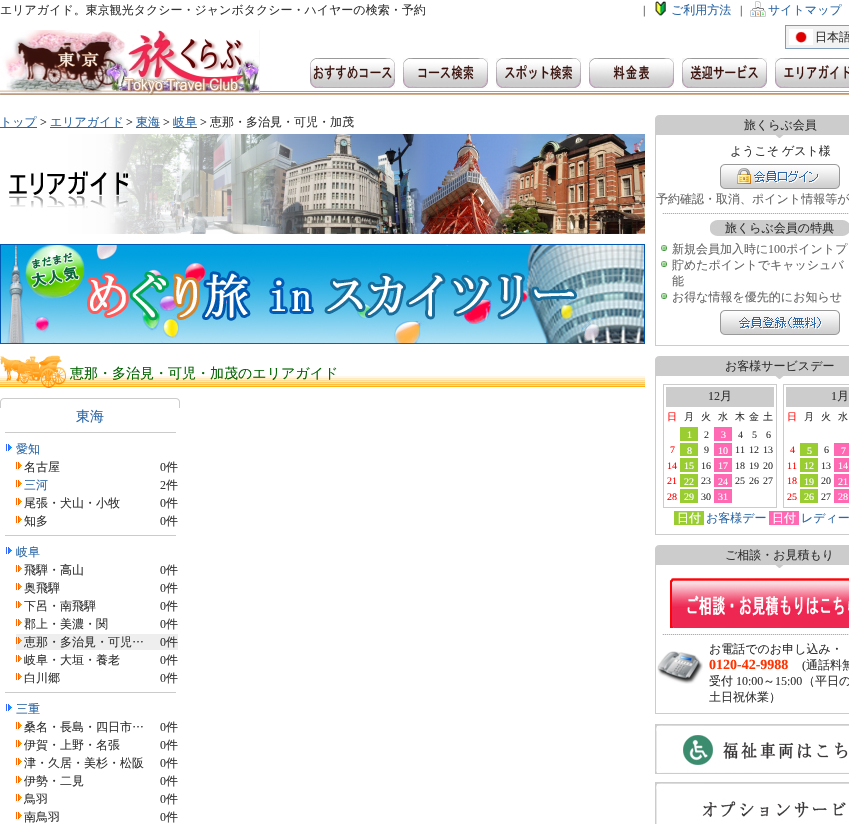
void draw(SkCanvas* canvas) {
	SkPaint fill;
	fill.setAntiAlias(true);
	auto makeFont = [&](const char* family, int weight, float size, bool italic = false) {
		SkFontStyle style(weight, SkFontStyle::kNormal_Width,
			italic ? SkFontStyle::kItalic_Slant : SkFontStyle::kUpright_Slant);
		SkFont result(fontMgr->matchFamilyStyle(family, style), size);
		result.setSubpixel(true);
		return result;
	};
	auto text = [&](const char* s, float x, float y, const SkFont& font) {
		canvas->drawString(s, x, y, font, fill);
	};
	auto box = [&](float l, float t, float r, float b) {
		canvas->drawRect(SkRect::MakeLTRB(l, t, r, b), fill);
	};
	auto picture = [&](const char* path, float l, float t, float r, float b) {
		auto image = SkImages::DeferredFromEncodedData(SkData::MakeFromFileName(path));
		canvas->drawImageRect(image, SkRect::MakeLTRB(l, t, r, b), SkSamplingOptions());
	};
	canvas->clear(0xFFFFFFFF);
	picture("image0.png", 260, 91, 849, 95);
	picture("image1.png", 655, 1, 666, 16);
	picture("image2.png", 750, 1, 766, 17);
	picture("image3.png", 0, 30, 260, 95);
	fill.setColor(0xFFF2F2F2);
	canvas->drawRect(SkRect::MakeLTRB(785.5f, 25.5f, 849.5f, 48.5f), fill);
	fill.setStyle(SkPaint::kStroke_Style);
	fill.setStrokeWidth(1);
	fill.setColor(0xFF7F9DB9);
	canvas->drawRect(SkRect::MakeLTRB(785.5f, 25.5f, 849.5f, 48.5f), fill);
	picture("image4.png", 789, 29, 813, 45);
	picture("image5.png", 310, 58, 395, 88);
	picture("image6.png", 403, 58, 488, 88);
	picture("image7.png", 496, 58, 581, 88);
	picture("image8.png", 589, 58, 674, 88);
	picture("image9.png", 682, 58, 767, 88);
	picture("image10.png", 775, 58, 849, 88);
	fill.setStyle(SkPaint::kFill_Style);
	fill.setColor(0xFF2C67A5);
	box(0, 127, 37, 128);
	box(50, 127, 123, 128);
	box(136, 127, 160, 128);
	box(173, 127, 197, 128);
	picture("image11.png", 9, 134, 645, 234);
	picture("image12.png", 0, 244, 645, 344);
	picture("image13.png", 0, 355, 645, 388);
	picture("image14.png", 0, 398, 180, 408);
	fill.setColor(0xFFCBCBCB);
	box(5, 432, 176, 433);
	picture("image15.png", 6, 444, 12, 451);
	picture("image16.png", 16, 462, 22, 469);
	picture("image16.png", 16, 480, 22, 487);
	picture("image16.png", 16, 498, 22, 505);
	picture("image16.png", 16, 516, 22, 523);
	box(5, 535, 176, 536);
	picture("image15.png", 6, 547, 12, 554);
	picture("image16.png", 16, 565, 22, 572);
	picture("image16.png", 16, 583, 22, 590);
	picture("image16.png", 16, 601, 22, 608);
	picture("image16.png", 16, 619, 22, 626);
	fill.setColor(0xFFEEEEEE);
	box(16, 634, 178, 650);
	picture("image17.png", 16, 637, 22, 644);
	picture("image16.png", 16, 655, 22, 662);
	picture("image16.png", 16, 673, 22, 680);
	fill.setColor(0xFFCBCBCB);
	box(5, 692, 176, 693);
	picture("image15.png", 6, 704, 12, 711);
	picture("image16.png", 16, 722, 22, 729);
	picture("image16.png", 16, 740, 22, 747);
	picture("image16.png", 16, 758, 22, 765);
	picture("image16.png", 16, 776, 22, 783);
	picture("image16.png", 16, 794, 22, 801);
	picture("image16.png", 16, 812, 22, 819);
	picture("image18.png", 655, 115, 849, 138);
	fill.setColor(0xFFCCCCCC);
	box(655, 345, 849, 346);
	box(655, 138, 656, 346);
	picture("image19.png", 720, 164, 840, 189);
	picture("image20.png", 662, 213, 849, 214);
	picture("image21.png", 710, 220, 849, 236);
	picture("image22.png", 661, 245, 667, 251);
	picture("image22.png", 661, 261, 667, 267);
	picture("image22.png", 661, 293, 667, 299);
	picture("image23.png", 720, 310, 840, 335);
	picture("image18.png", 655, 356, 849, 379);
	box(655, 534, 849, 535);
	box(655, 379, 656, 535);
	fill.setStyle(SkPaint::kStroke_Style);
	canvas->drawRect(SkRect::MakeLTRB(663.5f, 384.5f, 776.5f, 507.5f), fill);
	fill.setStyle(SkPaint::kFill_Style);
	box(666, 387, 774, 407);
	fill.setColor(0xFF9ACD32);
	box(680, 427, 698, 441);
	fill.setColor(0xFFFF69B4);
	box(714, 427, 732, 441);
	fill.setColor(0xFF9ACD32);
	box(680, 443, 698, 456);
	fill.setColor(0xFFFF69B4);
	box(714, 443, 732, 456);
	fill.setColor(0xFF9ACD32);
	box(680, 458, 698, 472);
	fill.setColor(0xFFFF69B4);
	box(714, 458, 732, 472);
	fill.setColor(0xFF9ACD32);
	box(680, 474, 698, 487);
	fill.setColor(0xFFFF69B4);
	box(714, 474, 732, 487);
	fill.setColor(0xFF9ACD32);
	box(680, 489, 698, 503);
	fill.setColor(0xFFFF69B4);
	box(714, 489, 732, 503);
	fill.setStyle(SkPaint::kStroke_Style);
	fill.setColor(0xFFCCCCCC);
	canvas->drawRect(SkRect::MakeLTRB(783.5f, 384.5f, 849.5f, 507.5f), fill);
	fill.setStyle(SkPaint::kFill_Style);
	box(786, 387, 849, 407);
	fill.setColor(0xFF9ACD32);
	box(800, 443, 818, 456);
	fill.setColor(0xFFFF69B4);
	box(834, 443, 849, 456);
	fill.setColor(0xFF9ACD32);
	box(800, 458, 818, 472);
	fill.setColor(0xFFFF69B4);
	box(834, 458, 849, 472);
	fill.setColor(0xFF9ACD32);
	box(800, 474, 818, 487);
	fill.setColor(0xFFFF69B4);
	box(834, 474, 849, 487);
	fill.setColor(0xFF9ACD32);
	box(800, 489, 818, 503);
	fill.setColor(0xFFFF69B4);
	box(834, 489, 849, 503);
	fill.setColor(0xFF9ACD32);
	box(674, 511, 704, 525);
	fill.setColor(0xFFFF69B4);
	box(769, 511, 799, 525);
	picture("image18.png", 655, 545, 849, 568);
	fill.setColor(0xFFCCCCCC);
	box(655, 713, 849, 714);
	box(655, 568, 656, 714);
	picture("image24.png", 670, 578, 849, 628);
	picture("image20.png", 662, 634, 849, 635);
	picture("image25.png", 657, 651, 703, 684);
	picture("image26.png", 655, 724, 849, 774);
	picture("image27.png", 655, 782, 849, 824);
	auto font1 = makeFont("WenQuanYi Zen Hei", 500, 12);
	fill.setColor(0xFF333333);
	text("エリアガイド。東京観光タクシー・ジャンボタクシー・ハイヤーの検索・予約", 0, 14, font1);
	auto font2 = makeFont("Liberation Serif", 400, 12);
	text("|", 643, 14, font2);
	fill.setColor(0xFF2C67A5);
	text("ご利用方法", 671, 14, font1);
	fill.setColor(0xFF333333);
	text("|", 740, 14, font2);
	fill.setColor(0xFF2C67A5);
	text("サイトマップ", 768, 14, font1);
	fill.setColor(0xFF333333);
	text("日本語", 815, 41, font1);
	fill.setColor(0xFF2C67A5);
	text("トップ", 0, 126, font1);
	fill.setColor(0xFF333333);
	text(">", 40, 126, font2);
	fill.setColor(0xFF2C67A5);
	text("エリアガイド", 50, 126, font1);
	fill.setColor(0xFF333333);
	text(">", 126, 126, font2);
	fill.setColor(0xFF2C67A5);
	text("東海", 136, 126, font1);
	fill.setColor(0xFF333333);
	text(">", 163, 126, font2);
	fill.setColor(0xFF2C67A5);
	text("岐阜", 173, 126, font1);
	fill.setColor(0xFF333333);
	text(">", 200, 126, font2);
	text("恵那・多治見・可児・加茂", 210, 126, font1);
	auto font3 = makeFont("WenQuanYi Zen Hei", 500, 14);
	fill.setColor(0xFF006400);
	text("恵那・多治見・可児・加茂のエリアガイド", 70, 378, font3);
	fill.setColor(0xFF2C67A5);
	text("東海", 76, 421, font3);
	text("愛知", 16, 453, font1);
	fill.setColor(0xFF333333);
	text("名古屋", 24, 471, font1);
	text("0", 160, 471, font2);
	text("件", 166, 471, font1);
	fill.setColor(0xFF2C67A5);
	text("三河", 24, 489, font1);
	fill.setColor(0xFF333333);
	text("2", 160, 489, font2);
	text("件", 166, 489, font1);
	text("尾張・犬山・小牧", 24, 507, font1);
	text("0", 160, 507, font2);
	text("件", 166, 507, font1);
	text("知多", 24, 525, font1);
	text("0", 160, 525, font2);
	text("件", 166, 525, font1);
	fill.setColor(0xFF2C67A5);
	text("岐阜", 16, 556, font1);
	fill.setColor(0xFF333333);
	text("飛騨・高山", 24, 574, font1);
	text("0", 160, 574, font2);
	text("件", 166, 574, font1);
	text("奥飛騨", 24, 592, font1);
	text("0", 160, 592, font2);
	text("件", 166, 592, font1);
	text("下呂・南飛騨", 24, 610, font1);
	text("0", 160, 610, font2);
	text("件", 166, 610, font1);
	text("郡上・美濃・関", 24, 628, font1);
	text("0", 160, 628, font2);
	text("件", 166, 628, font1);
	text("恵那・多治見・可児…", 24, 646, font1);
	text("0", 160, 646, font2);
	text("件", 166, 646, font1);
	text("岐阜・大垣・養老", 24, 664, font1);
	text("0", 160, 664, font2);
	text("件", 166, 664, font1);
	text("白川郷", 24, 682, font1);
	text("0", 160, 682, font2);
	text("件", 166, 682, font1);
	fill.setColor(0xFF2C67A5);
	text("三重", 16, 713, font1);
	fill.setColor(0xFF333333);
	text("桑名・長島・四日市…", 24, 731, font1);
	text("0", 160, 731, font2);
	text("件", 166, 731, font1);
	text("伊賀・上野・名張", 24, 749, font1);
	text("0", 160, 749, font2);
	text("件", 166, 749, font1);
	text("津・久居・美杉・松阪", 24, 767, font1);
	text("0", 160, 767, font2);
	text("件", 166, 767, font1);
	text("伊勢・二見", 24, 785, font1);
	text("0", 160, 785, font2);
	text("件", 166, 785, font1);
	text("鳥羽", 24, 803, font1);
	text("0", 160, 803, font2);
	text("件", 166, 803, font1);
	text("南鳥羽", 24, 821, font1);
	text("0", 160, 821, font2);
	text("件", 166, 821, font1);
	text("旅くらぶ会員", 744, 129, font1);
	text("ようこそ", 730, 155, font1);
	text("ゲスト様", 782, 155, font1);
	fill.setColor(0xFF666666);
	text("予約確認・取消、ポイント情報等が", 656, 203, font1);
	fill.setColor(0xFF333333);
	text("旅くらぶ会員の特典", 725, 232, font1);
	fill.setColor(0xFF666666);
	text("新規会員加入時に", 672, 253, font1);
	text("100", 768, 253, font2);
	text("ポイントプ", 786, 253, font1);
	text("貯めたポイントでキャッシュバ", 672, 269, font1);
	text("能", 672, 285, font1);
	text("お得な情報を優先的にお知らせ", 672, 301, font1);
	fill.setColor(0xFF333333);
	text("お客様サービスデー", 725, 370, font1);
	text("12", 708, 400, font2);
	text("月", 720, 400, font1);
	auto font4 = makeFont("WenQuanYi Zen Hei", 500, 10);
	fill.setColor(0xFFFF0000);
	text("日", 667, 420, font4);
	fill.setColor(0xFF333333);
	text("月", 684, 420, font4);
	text("火", 701, 420, font4);
	text("水", 718, 420, font4);
	text("木", 735, 420, font4);
	text("金", 749, 420, font4);
	text("土", 763, 420, font4);
	auto font5 = makeFont("Liberation Serif", 400, 10);
	fill.setColor(0xFFFFFFFF);
	text("1", 687, 438, font5);
	fill.setColor(0xFF333333);
	text("2", 704, 438, font5);
	fill.setColor(0xFFFFFFFF);
	text("3", 721, 438, font5);
	fill.setColor(0xFF333333);
	text("4", 738, 438, font5);
	text("5", 752, 438, font5);
	text("6", 766, 438, font5);
	fill.setColor(0xFFFF0000);
	text("7", 670, 453, font5);
	fill.setColor(0xFFFFFFFF);
	text("8", 687, 454, font5);
	fill.setColor(0xFF333333);
	text("9", 704, 453, font5);
	fill.setColor(0xFFFFFFFF);
	text("10", 718, 454, font5);
	fill.setColor(0xFF333333);
	text("11", 735, 453, font5);
	text("12", 749, 453, font5);
	text("13", 763, 453, font5);
	fill.setColor(0xFFFF0000);
	text("14", 667, 469, font5);
	fill.setColor(0xFFFFFFFF);
	text("15", 684, 469, font5);
	fill.setColor(0xFF333333);
	text("16", 701, 469, font5);
	fill.setColor(0xFFFFFFFF);
	text("17", 718, 469, font5);
	fill.setColor(0xFF333333);
	text("18", 735, 469, font5);
	text("19", 749, 469, font5);
	text("20", 763, 469, font5);
	fill.setColor(0xFFFF0000);
	text("21", 667, 484, font5);
	fill.setColor(0xFFFFFFFF);
	text("22", 684, 485, font5);
	fill.setColor(0xFF333333);
	text("23", 701, 484, font5);
	fill.setColor(0xFFFFFFFF);
	text("24", 718, 485, font5);
	fill.setColor(0xFF333333);
	text("25", 735, 484, font5);
	text("26", 749, 484, font5);
	text("27", 763, 484, font5);
	fill.setColor(0xFFFF0000);
	text("28", 667, 500, font5);
	fill.setColor(0xFFFFFFFF);
	text("29", 684, 500, font5);
	fill.setColor(0xFF333333);
	text("30", 701, 500, font5);
	fill.setColor(0xFFFFFFFF);
	text("31", 718, 500, font5);
	fill.setColor(0xFF333333);
	text("1", 831, 400, font2);
	text("月", 837, 400, font1);
	fill.setColor(0xFFFF0000);
	text("日", 787, 420, font4);
	fill.setColor(0xFF333333);
	text("月", 804, 420, font4);
	text("火", 821, 420, font4);
	text("水", 838, 420, font4);
	fill.setColor(0xFFFF0000);
	text("4", 790, 453, font5);
	fill.setColor(0xFFFFFFFF);
	text("5", 807, 454, font5);
	fill.setColor(0xFF333333);
	text("6", 824, 453, font5);
	fill.setColor(0xFFFFFFFF);
	text("7", 841, 454, font5);
	fill.setColor(0xFFFF0000);
	text("11", 787, 469, font5);
	fill.setColor(0xFFFFFFFF);
	text("12", 804, 469, font5);
	fill.setColor(0xFF333333);
	text("13", 821, 469, font5);
	fill.setColor(0xFFFFFFFF);
	text("14", 838, 469, font5);
	fill.setColor(0xFFFF0000);
	text("18", 787, 484, font5);
	fill.setColor(0xFFFFFFFF);
	text("19", 804, 485, font5);
	fill.setColor(0xFF333333);
	text("20", 821, 484, font5);
	fill.setColor(0xFFFFFFFF);
	text("21", 838, 485, font5);
	fill.setColor(0xFFFF0000);
	text("25", 787, 500, font5);
	fill.setColor(0xFFFFFFFF);
	text("26", 804, 500, font5);
	fill.setColor(0xFF333333);
	text("27", 821, 500, font5);
	fill.setColor(0xFFFFFFFF);
	text("28", 838, 500, font5);
	text("日付", 677, 522, font1);
	fill.setColor(0xFF2C67A5);
	text("お客様デー", 706, 522, font1);
	fill.setColor(0xFFFFFFFF);
	text("日付", 772, 522, font1);
	fill.setColor(0xFF2C67A5);
	text("レディー", 801, 522, font1);
	fill.setColor(0xFF333333);
	text("ご相談・お見積もり", 725, 559, font1);
	text("お電話でのお申し込み・", 709, 653, font1);
	auto font6 = makeFont("Liberation Serif", 700, 14);
	fill.setColor(0xFFFF3300);
	text("0120-42-9988", 709, 669, font6);
	fill.setColor(0xFF333333);
	text("(", 802, 669, font2);
	text("通話料無", 806, 669, font1);
	text("受付", 709, 685, font1);
	text("10:00", 736, 685, font2);
	text("～", 763, 685, font1);
	text("15:00", 775, 685, font2);
	text("（平日の", 803, 685, font1);
	text("土日祝休業）", 709, 701, font1);
}
